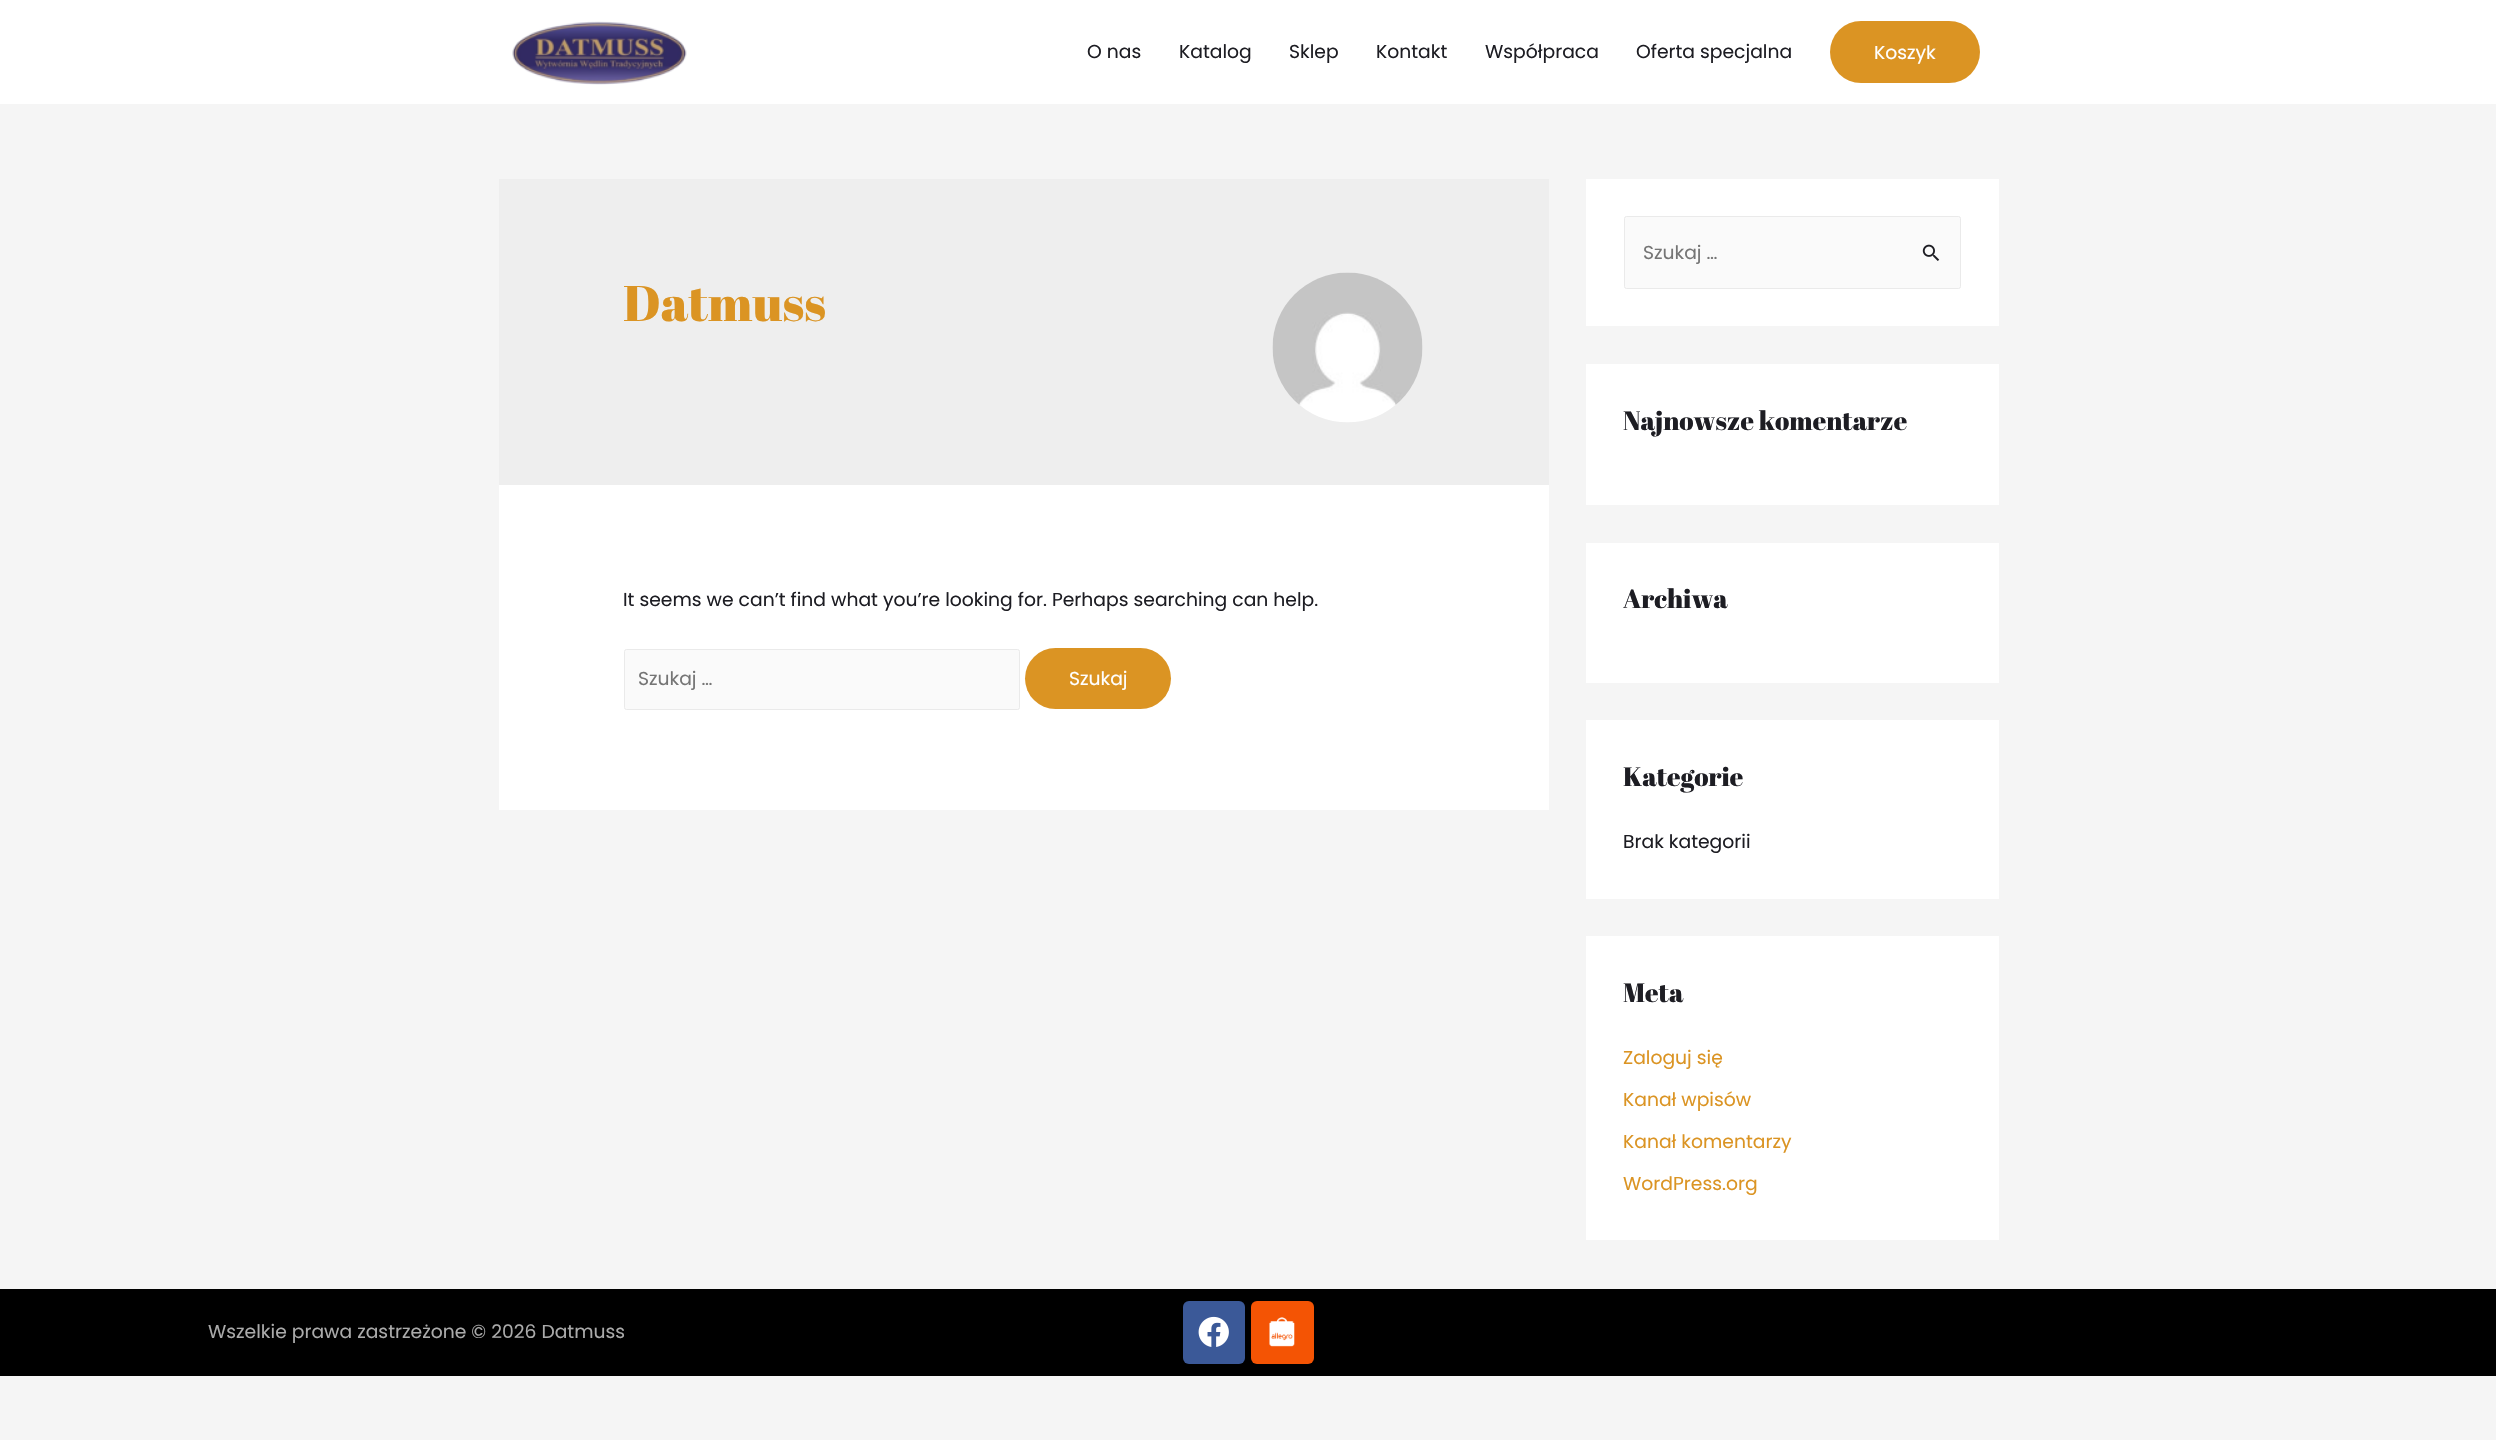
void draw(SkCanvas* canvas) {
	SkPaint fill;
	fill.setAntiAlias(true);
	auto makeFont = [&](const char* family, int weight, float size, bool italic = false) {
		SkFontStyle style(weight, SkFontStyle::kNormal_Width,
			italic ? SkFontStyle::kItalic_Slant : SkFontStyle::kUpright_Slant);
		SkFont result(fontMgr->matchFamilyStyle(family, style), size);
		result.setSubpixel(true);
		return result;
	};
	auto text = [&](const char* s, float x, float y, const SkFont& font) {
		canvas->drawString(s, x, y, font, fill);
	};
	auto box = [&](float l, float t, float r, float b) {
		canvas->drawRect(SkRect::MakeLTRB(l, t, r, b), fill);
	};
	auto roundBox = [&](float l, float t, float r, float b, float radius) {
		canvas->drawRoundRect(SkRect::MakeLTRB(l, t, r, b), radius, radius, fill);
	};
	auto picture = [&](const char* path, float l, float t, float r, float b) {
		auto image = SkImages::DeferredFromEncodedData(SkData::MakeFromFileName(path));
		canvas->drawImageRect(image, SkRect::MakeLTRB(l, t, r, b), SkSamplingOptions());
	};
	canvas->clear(0xFFF5F5F5);
	fill.setColor(0xFFFFFFFF);
	box(0, 0, 2496, 104);
	picture("image0.png", 512, 21, 687, 85);
	fill.setColor(0xFFDB9423);
	roundBox(1830, 21, 1980, 83, 31);
	fill.setColor(0xFFEEEEEE);
	box(499, 179, 1549, 485);
	picture("image1.png", 1272, 272, 1423, 423);
	fill.setColor(0xFFFFFFFF);
	box(499, 485, 1549, 810);
	fill.setColor(0xFFFAFAFA);
	canvas->drawRoundRect(SkRect::MakeLTRB(624.5f, 649.5f, 1019.5f, 709.5f), 2, 2, fill);
	fill.setStyle(SkPaint::kStroke_Style);
	fill.setStrokeWidth(1);
	fill.setColor(0xFFEAEAEA);
	canvas->drawRoundRect(SkRect::MakeLTRB(624.5f, 649.5f, 1019.5f, 709.5f), 2, 2, fill);
	fill.setStyle(SkPaint::kFill_Style);
	fill.setColor(0xFFDB9423);
	roundBox(1025, 648, 1171, 709, 30.5f);
	fill.setColor(0xFFFFFFFF);
	box(1586, 179, 1999, 326);
	fill.setColor(0xFFFAFAFA);
	canvas->drawRoundRect(SkRect::MakeLTRB(1624.5f, 216.5f, 1960.5f, 288.5f), 2, 2, fill);
	fill.setStyle(SkPaint::kStroke_Style);
	fill.setColor(0xFFEAEAEA);
	canvas->drawRoundRect(SkRect::MakeLTRB(1624.5f, 216.5f, 1960.5f, 288.5f), 2, 2, fill);
	picture("image2.png", 1922, 244, 1940, 261);
	fill.setStyle(SkPaint::kFill_Style);
	fill.setColor(0xFFFFFFFF);
	box(1586, 364, 1999, 505);
	box(1586, 543, 1999, 683);
	box(1586, 720, 1999, 899);
	box(1586, 936, 1999, 1240);
	fill.setColor(0xFF000000);
	box(0, 1289, 2496, 1376);
	fill.setColor(0xFF3B5998);
	roundBox(1183, 1301, 1245, 1364, 6);
	picture("image3.png", 1198, 1316, 1229, 1347);
	fill.setColor(0xFFF45404);
	roundBox(1251, 1301, 1314, 1364, 6);
	picture("image4.png", 1269, 1317, 1295, 1347);
	auto font1 = makeFont("Poppins", 400, 18.75f);
	fill.setColor(0xFF1D1D23);
	text("O nas", 1087, 58, font1);
	text("Katalog", 1179, 58, font1);
	text("Sklep", 1289, 58, font1);
	text("Kontakt", 1376, 58, font1);
	text("Współpraca", 1485, 58, font1);
	text("Oferta specjalna", 1636, 58, font1);
	fill.setColor(0xFFFFFFFF);
	text("Koszyk", 1874, 59, font1);
	auto font2 = makeFont("Abril Fatface", 400, 50);
	fill.setColor(0xFFDB9423);
	text("Datmuss", 623, 321, font2);
	fill.setColor(0xFF1D1D23);
	text("It seems we can’t find what you’re looking for. Perhaps searching can help.", 623, 606, font1);
	fill.setColor(0xFF757575);
	text("Szukaj …", 638, 685, font1);
	fill.setColor(0xFFFFFFFF);
	text("Szukaj", 1069, 685, font1);
	fill.setColor(0xFF757575);
	text("Szukaj …", 1643, 259, font1);
	auto font3 = makeFont("Abril Fatface", 400, 26.25f);
	fill.setColor(0xFF1D1D23);
	text("Najnowsze komentarze", 1623, 430, font3);
	text("Archiwa", 1623, 608, font3);
	text("Kategorie", 1623, 786, font3);
	text("Brak kategorii", 1623, 848, font1);
	text("Meta", 1623, 1002, font3);
	fill.setColor(0xFFDB9423);
	text("Zaloguj się", 1623, 1064, font1);
	text("Kanał wpisów", 1623, 1106, font1);
	text("Kanał komentarzy", 1623, 1148, font1);
	text("WordPress.org", 1623, 1190, font1);
	fill.setColor(0xFFAAAAAA);
	text("Wszelkie prawa zastrzeżone © 2026 Datmuss", 208, 1338, font1);
}
